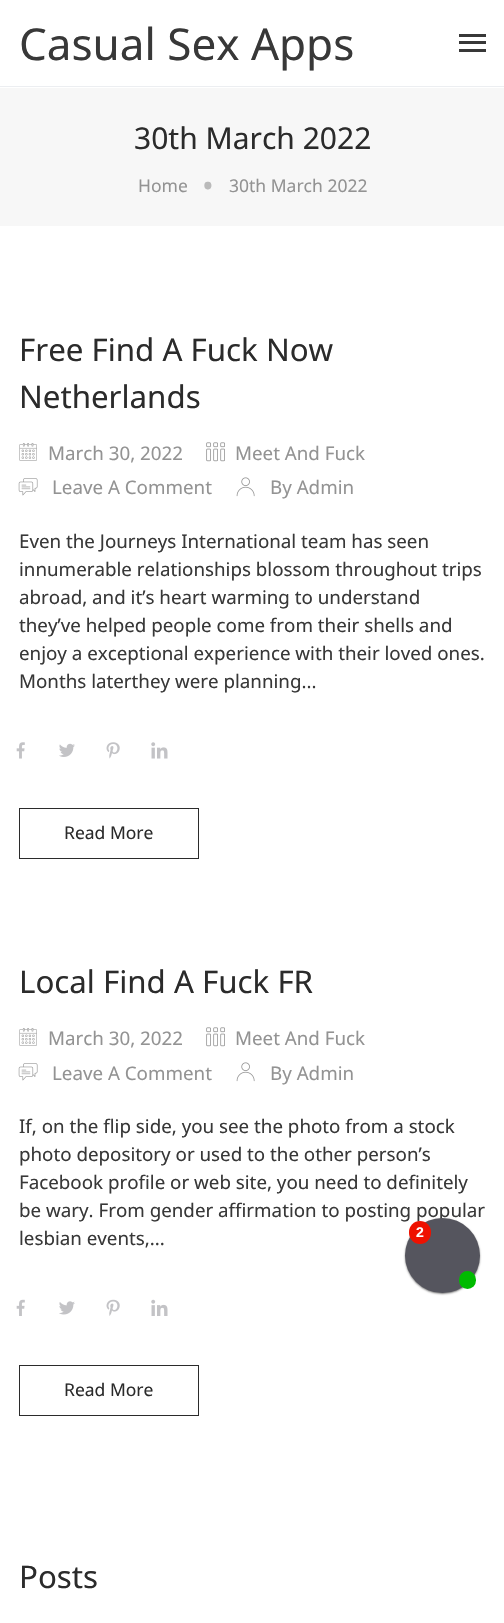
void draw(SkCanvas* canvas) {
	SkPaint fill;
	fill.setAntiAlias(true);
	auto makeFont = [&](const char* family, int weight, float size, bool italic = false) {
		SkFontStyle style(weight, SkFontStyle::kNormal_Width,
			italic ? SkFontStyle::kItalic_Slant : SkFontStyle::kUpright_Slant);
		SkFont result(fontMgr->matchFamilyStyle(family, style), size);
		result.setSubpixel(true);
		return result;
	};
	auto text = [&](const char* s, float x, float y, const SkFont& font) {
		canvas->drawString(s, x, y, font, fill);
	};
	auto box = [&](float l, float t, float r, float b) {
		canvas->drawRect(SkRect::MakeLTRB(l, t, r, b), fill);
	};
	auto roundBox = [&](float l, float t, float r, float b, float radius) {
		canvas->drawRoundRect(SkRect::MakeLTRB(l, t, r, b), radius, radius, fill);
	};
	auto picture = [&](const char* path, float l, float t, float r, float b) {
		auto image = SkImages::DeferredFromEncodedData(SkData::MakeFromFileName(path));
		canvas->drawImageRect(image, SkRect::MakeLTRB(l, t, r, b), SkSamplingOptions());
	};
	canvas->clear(0xFFFFFFFF);
	fill.setColor(0xFFECEEF1);
	box(0, 86, 504, 87);
	fill.setColor(0xFF383838);
	box(459, 34, 486, 37);
	box(459, 41, 486, 44);
	box(459, 49, 486, 52);
	fill.setColor(0xFFF7F7F7);
	box(0, 88, 504, 226);
	picture("image0.png", 19, 443, 37, 461);
	picture("image1.png", 206, 442, 225, 462);
	picture("image2.png", 18, 478, 38, 496);
	picture("image3.png", 236, 477, 255, 497);
	picture("image4.png", 16, 742, 25, 759);
	picture("image5.png", 59, 743, 75, 757);
	picture("image6.png", 106, 742, 120, 759);
	picture("image7.png", 151, 742, 168, 759);
	fill.setStyle(SkPaint::kStroke_Style);
	fill.setStrokeWidth(1);
	fill.setColor(0xFF2B2B2B);
	canvas->drawRect(SkRect::MakeLTRB(19.5f, 808.5f, 198.5f, 858.5f), fill);
	picture("image0.png", 19, 1028, 37, 1046);
	picture("image1.png", 206, 1027, 225, 1047);
	picture("image2.png", 18, 1063, 38, 1081);
	picture("image3.png", 236, 1062, 255, 1082);
	picture("image8.png", 16, 1299, 25, 1316);
	picture("image9.png", 59, 1301, 75, 1315);
	picture("image10.png", 106, 1299, 120, 1316);
	picture("image11.png", 151, 1299, 168, 1316);
	canvas->drawRect(SkRect::MakeLTRB(19.5f, 1365.5f, 198.5f, 1415.5f), fill);
	fill.setStyle(SkPaint::kFill_Style);
	fill.setColor(0x80000000);
	fill.setMaskFilter(SkMaskFilter::MakeBlur(kNormal_SkBlurStyle, 1));
	canvas->drawRoundRect(SkRect::MakeLTRB(405, 1219, 480, 1294), 37.5f, 37.5f, fill);
	fill.setMaskFilter(nullptr);
	auto font1 = makeFont("Noto Sans", 400, 44);
	fill.setColor(0xFF383838);
	text("Casual Sex Apps", 19, 60, font1);
	auto font2 = makeFont("Noto Sans", 400, 30);
	fill.setColor(0xFF2B2B2B);
	text("30th March 2022", 134, 149, font2);
	auto font3 = makeFont("Noto Sans", 400, 17.5f);
	fill.setColor(0xFF939393);
	text("Home", 138, 192, font3);
	auto font4 = makeFont("Noto Sans", 400, 31.25f);
	fill.setColor(0xFFBABABA);
	text("•", 202, 197, font4);
	fill.setColor(0xFF939393);
	text("30th March 2022", 229, 192, font3);
	fill.setColor(0xFF2B2B2B);
	text("Free Find A Fuck Now", 19, 361, font4);
	text("Netherlands", 19, 408, font4);
	auto font5 = makeFont("Noto Sans", 400, 18.75f);
	fill.setColor(0xFF939393);
	text("March 30, 2022", 48, 460, font5);
	text("Meet And Fuck", 235, 460, font5);
	text("Leave A Comment", 52, 494, font5);
	text("By Admin", 270, 494, font5);
	fill.setColor(0xFF383838);
	text("Even the Journeys International team has seen", 19, 548, font5);
	text("innumerable relationships blossom throughout trips", 19, 576, font5);
	text("abroad, and it’s heart warming to understand", 19, 604, font5);
	text("they’ve helped people come from their shells and", 19, 632, font5);
	text("enjoy a exceptional experience with their loved ones.", 19, 660, font5);
	text("Months laterthey were planning...", 19, 688, font5);
	fill.setColor(0xFF2B2B2B);
	text("Read More", 64, 839, font3);
	text("Local Find A Fuck FR", 19, 993, font4);
	fill.setColor(0xFF939393);
	text("March 30, 2022", 48, 1045, font5);
	text("Meet And Fuck", 235, 1045, font5);
	text("Leave A Comment", 52, 1080, font5);
	text("By Admin", 270, 1080, font5);
	fill.setColor(0xFF383838);
	text("If, on the flip side, you see the photo from a stock", 19, 1133, font5);
	text("photo depository or used to the other person’s", 19, 1161, font5);
	text("Facebook profile or web site, you need to definitely", 19, 1189, font5);
	text("be wary. From gender affirmation to posting popular", 19, 1217, font5);
	text("lesbian events,...", 19, 1245, font5);
	fill.setColor(0xFF2B2B2B);
	text("Read More", 64, 1396, font3);
	text("Posts", 19, 1588, font4);
	fill.setColor(0xFF55555E);
	canvas->drawCircle(442.5f, 1255.5f, 37.5f, fill);
	fill.setColor(0xFFEE1100);
	roundBox(409, 1221, 431, 1244, 11);
	auto font6 = makeFont("Liberation Sans", 700, 14);
	fill.setColor(0xFFFFFFFF);
	text("2", 416, 1237, font6);
	fill.setColor(0xFF00BB00);
	roundBox(459, 1271, 476, 1289, 8.5f);
}
